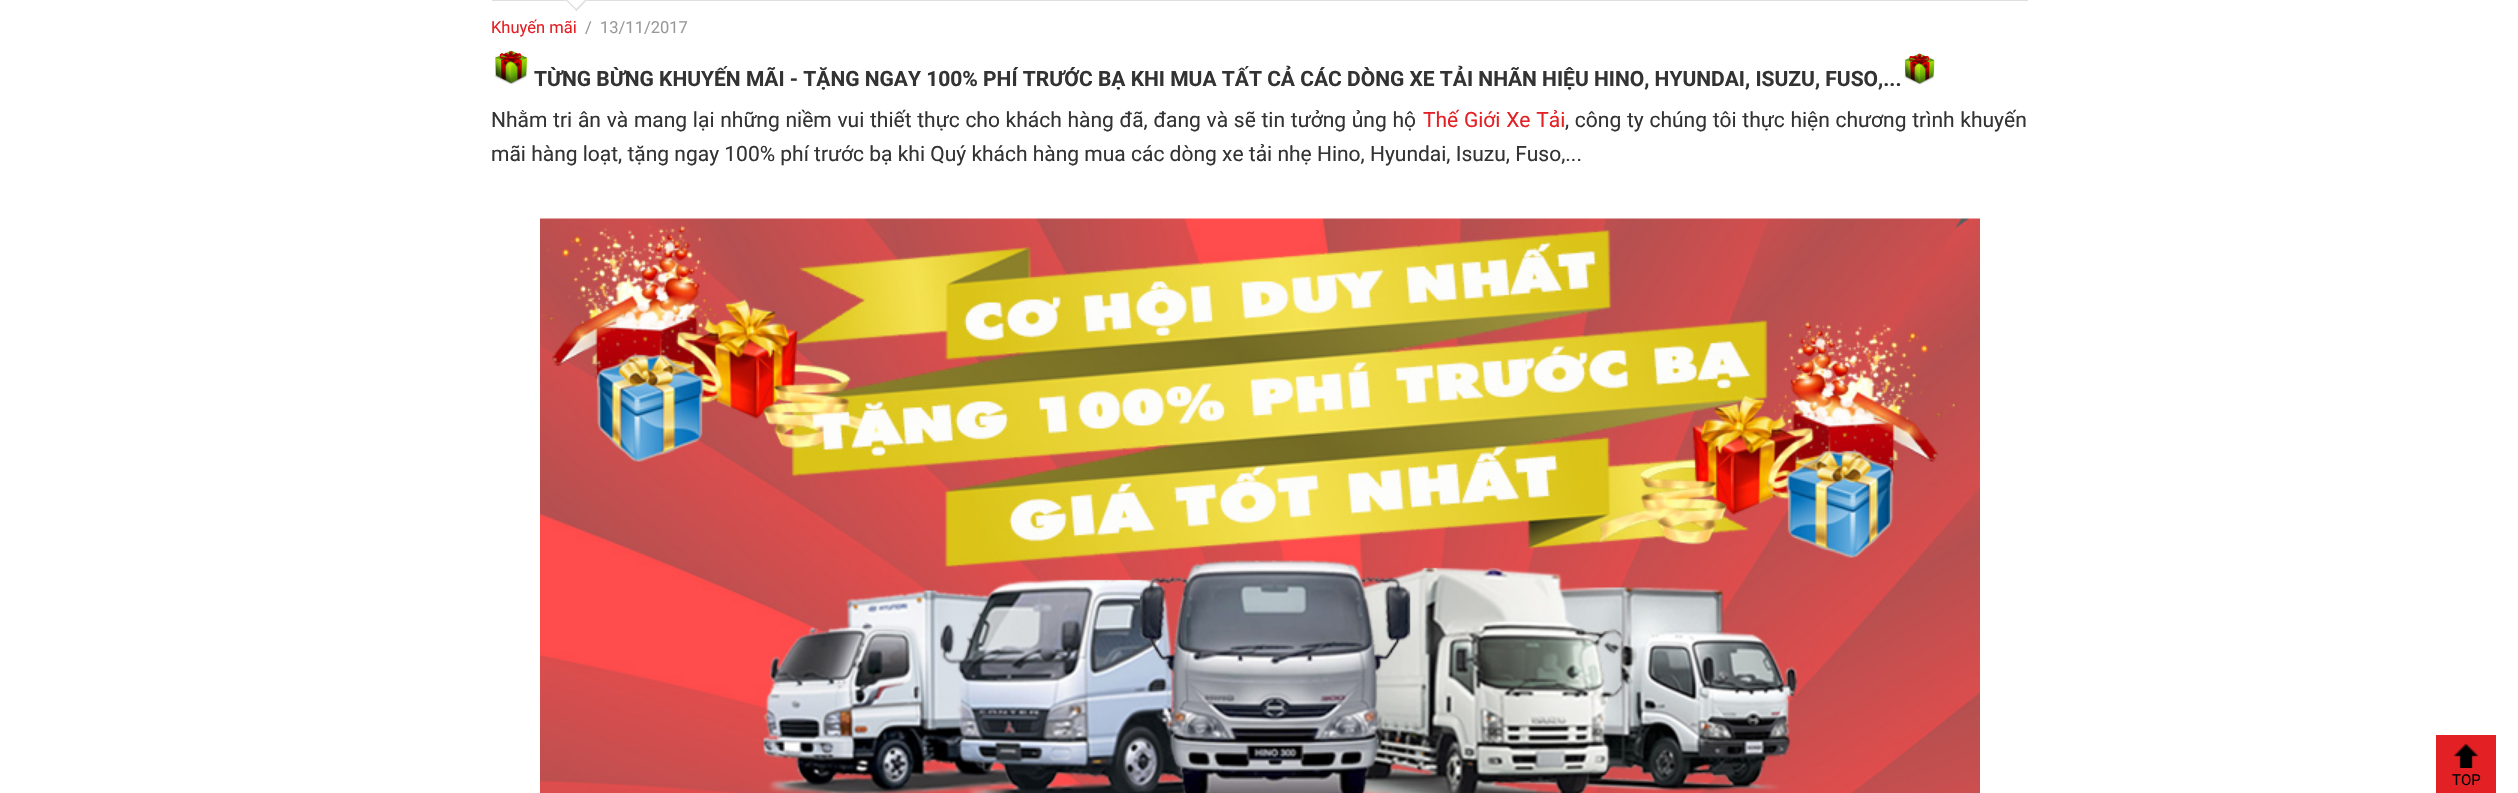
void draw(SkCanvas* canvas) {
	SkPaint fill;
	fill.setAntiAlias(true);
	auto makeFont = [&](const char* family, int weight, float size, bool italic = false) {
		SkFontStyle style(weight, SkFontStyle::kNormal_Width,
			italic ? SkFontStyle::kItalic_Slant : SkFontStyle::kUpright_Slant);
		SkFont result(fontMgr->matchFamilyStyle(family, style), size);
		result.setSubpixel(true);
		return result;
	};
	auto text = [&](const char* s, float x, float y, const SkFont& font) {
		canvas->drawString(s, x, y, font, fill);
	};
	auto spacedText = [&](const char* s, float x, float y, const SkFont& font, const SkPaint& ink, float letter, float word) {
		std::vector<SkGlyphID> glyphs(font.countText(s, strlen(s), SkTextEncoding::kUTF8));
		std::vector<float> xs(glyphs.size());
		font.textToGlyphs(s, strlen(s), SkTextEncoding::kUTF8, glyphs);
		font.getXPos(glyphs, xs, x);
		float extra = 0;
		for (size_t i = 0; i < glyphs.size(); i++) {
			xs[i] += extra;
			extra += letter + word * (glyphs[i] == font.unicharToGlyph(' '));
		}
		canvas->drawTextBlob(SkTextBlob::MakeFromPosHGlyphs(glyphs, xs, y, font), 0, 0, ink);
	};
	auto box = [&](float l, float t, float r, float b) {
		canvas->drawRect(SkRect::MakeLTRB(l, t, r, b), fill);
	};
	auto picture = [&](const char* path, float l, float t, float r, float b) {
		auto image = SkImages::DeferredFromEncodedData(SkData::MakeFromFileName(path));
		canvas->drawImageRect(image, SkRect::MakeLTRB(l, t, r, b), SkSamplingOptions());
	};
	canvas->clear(0xFFFFFFFF);
	fill.setColor(0xFFDFDFDF);
	box(492, 0, 2028, 1);
	fill.setColor(0xFFFFFFFF);
	canvas->drawPath(SkPathBuilder().moveTo(564.5f, -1).lineTo(576.5f, -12.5f).lineTo(588, -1).lineTo(576.5f, 11).close().detach(), fill);
	fill.setColor(0xFFDFDFDF);
	canvas->drawPath(SkPathBuilder().moveTo(575, 10).lineTo(587, -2).lineTo(588, -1).lineTo(576.5f, 11).close().detach(), fill);
	canvas->drawPath(SkPathBuilder().moveTo(564.5f, -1).lineTo(565.5f, -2).lineTo(577.5f, 10).lineTo(576.5f, 11).close().detach(), fill);
	picture("image0.png", 494, 50, 527, 85);
	picture("image1.png", 1904, 53, 1935, 85);
	picture("image2.png", 540, 218, 1980, 793);
	fill.setColor(0xFFE32124);
	box(2436, 735, 2496, 793);
	picture("image3.png", 2453, 743, 2479, 768);
	auto font1 = makeFont("Roboto", 400, 16.5f);
	text("Khuyến mãi", 491, 33, font1);
	fill.setColor(0xFF999999);
	text("/", 585, 33, font1);
	text("13/11/2017", 600, 33, font1);
	auto font2 = makeFont("Roboto", 700, 21);
	fill.setColor(0xFF333333);
	text("TỪNG BỪNG KHUYẾN MÃI - TẶNG NGAY 100% PHÍ TRƯỚC BẠ KHI MUA TẤT CẢ CÁC DÒNG XE TẢI NHÃN HIỆU HINO, HYUNDAI, ISUZU, FUSO,...", 534, 86, font2);
	auto font3 = makeFont("Roboto", 400, 21);
	spacedText("Nhằm tri ân và mang lại những niềm vui thiết thực cho khách hàng đã, đang và sẽ tin tưởng ủng hộ", 491, 127, font3, fill, 0, 0.5f);
	fill.setColor(0xFFE32124);
	spacedText("Thế Giới Xe Tải", 1423, 127, font3, fill, 0, 0.5f);
	fill.setColor(0xFF333333);
	spacedText(", công ty chúng tôi thực hiện chương trình khuyến", 1565, 127, font3, fill, 0, 0.5f);
	text("mãi hàng loạt, tặng ngay 100% phí trước bạ khi Quý khách hàng mua các dòng xe tải nhẹ Hino, Hyundai, Isuzu, Fuso,...", 491, 161, font3);
	auto font4 = makeFont("Roboto", 400, 15);
	fill.setColor(0xFF000000);
	text("TOP", 2452, 785, font4);
}
